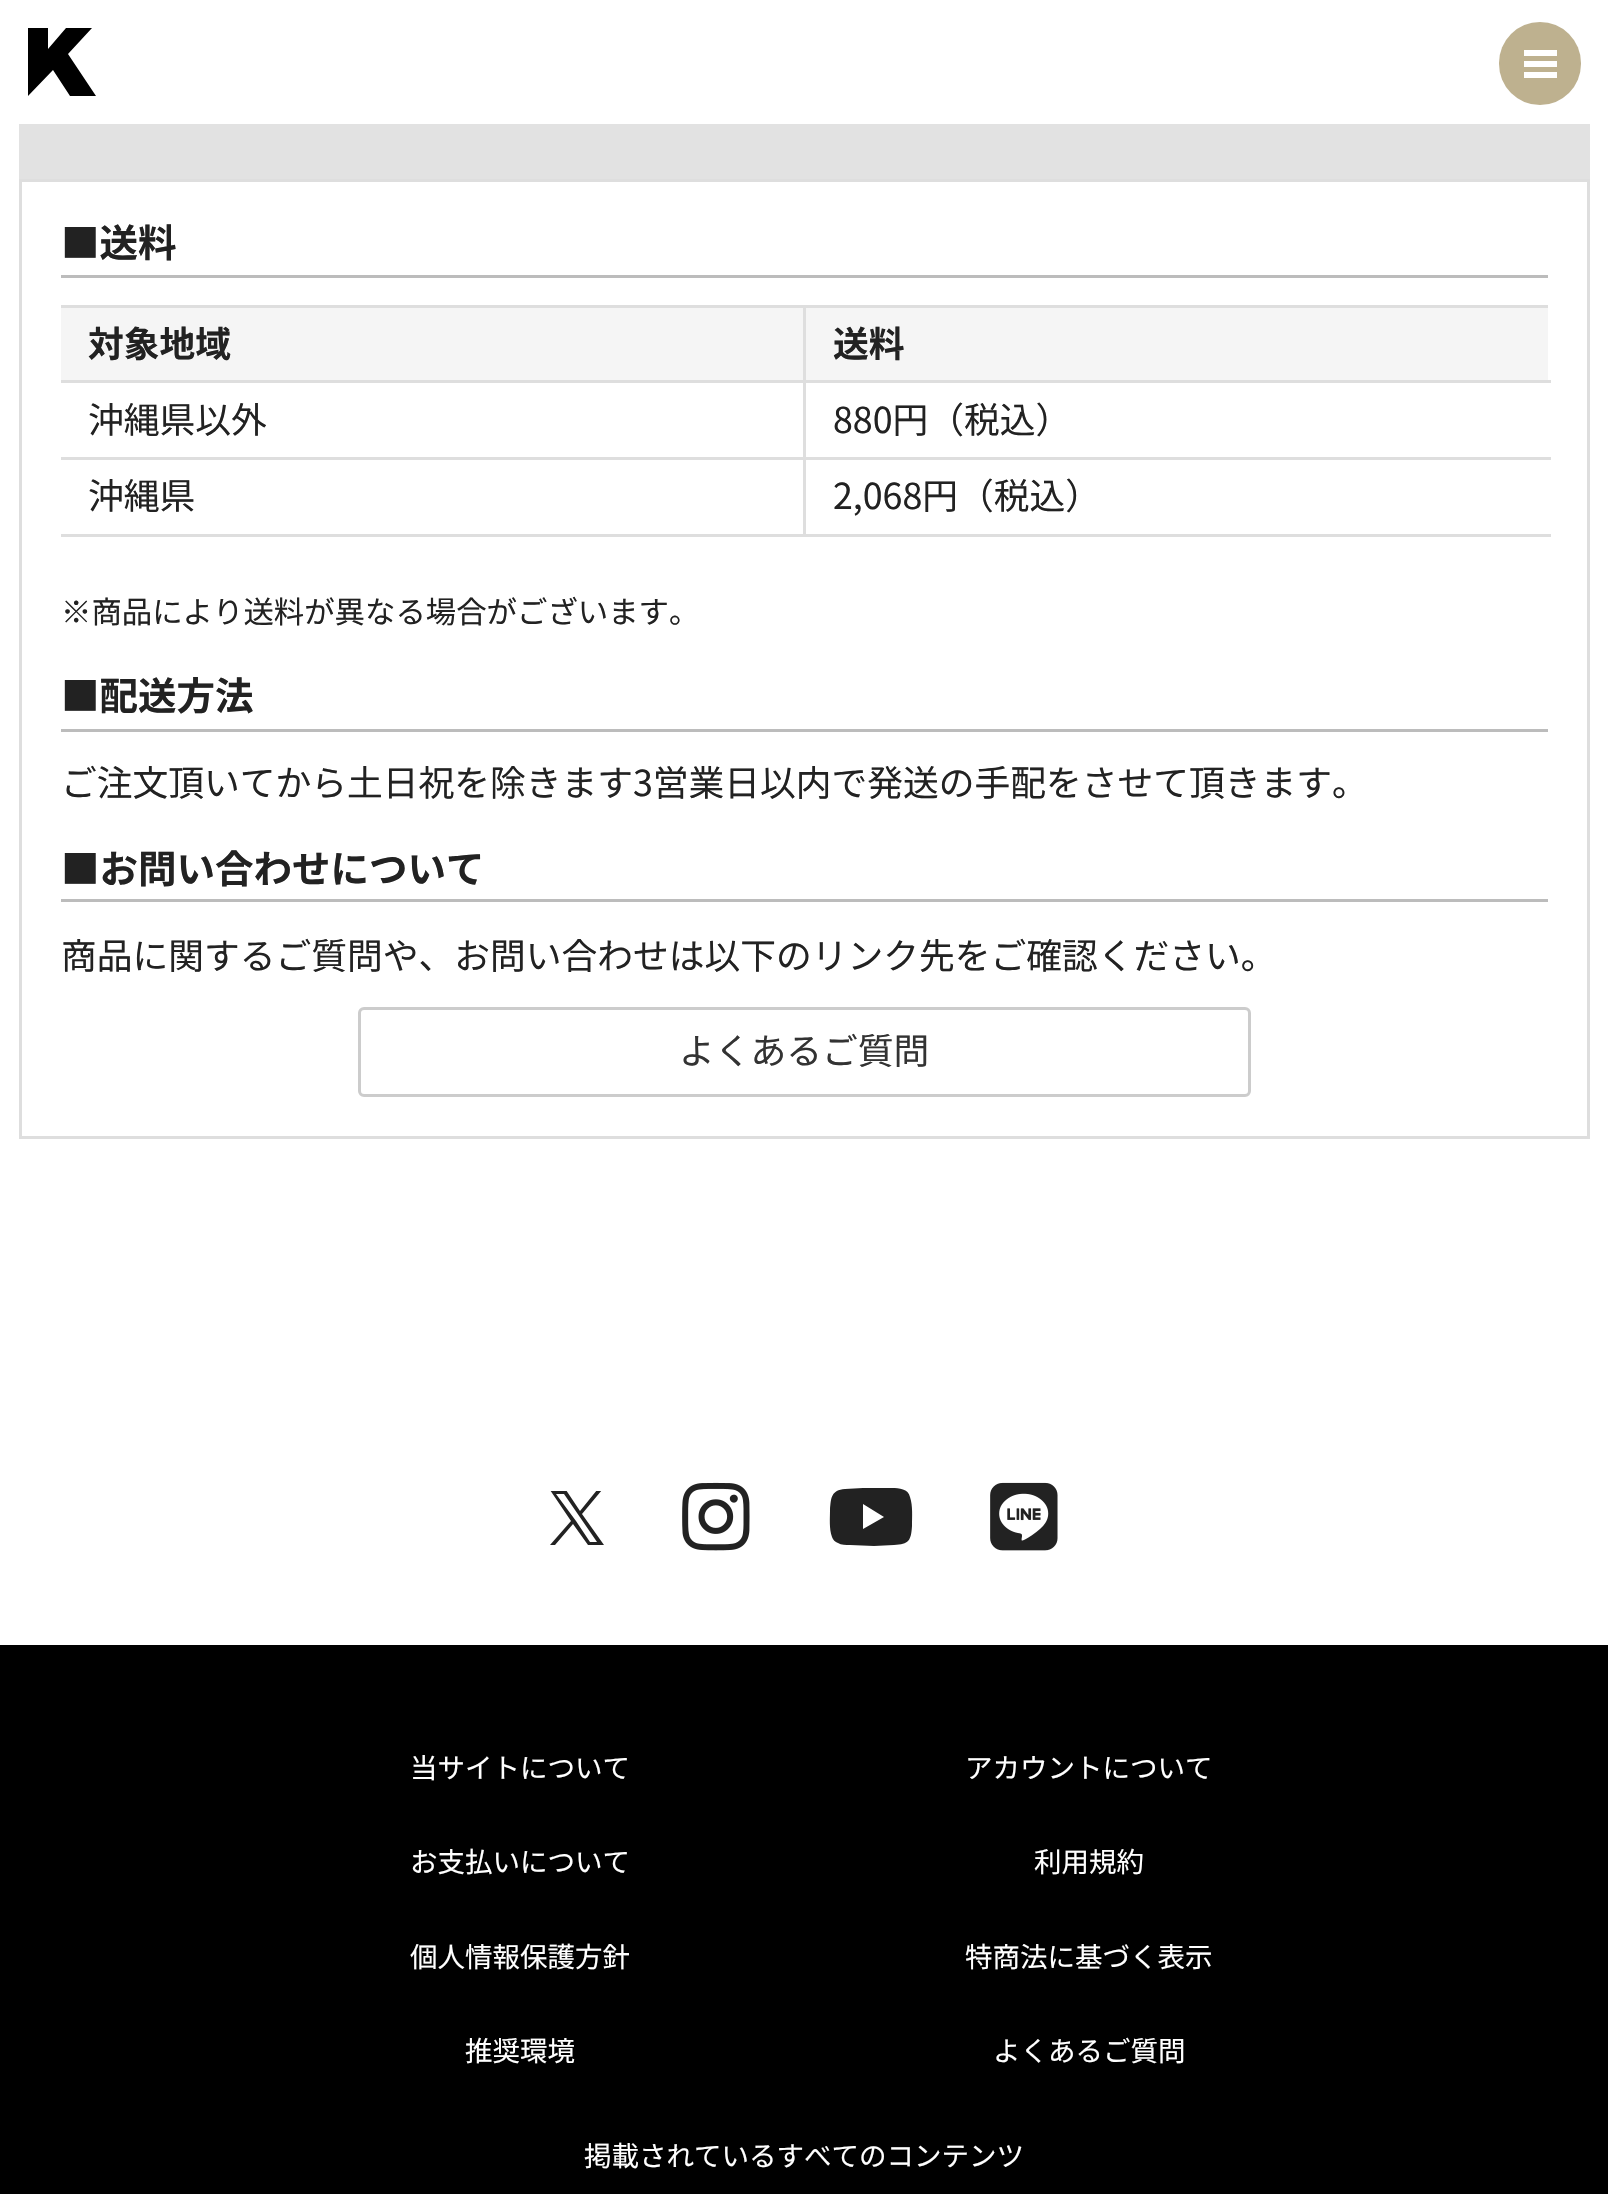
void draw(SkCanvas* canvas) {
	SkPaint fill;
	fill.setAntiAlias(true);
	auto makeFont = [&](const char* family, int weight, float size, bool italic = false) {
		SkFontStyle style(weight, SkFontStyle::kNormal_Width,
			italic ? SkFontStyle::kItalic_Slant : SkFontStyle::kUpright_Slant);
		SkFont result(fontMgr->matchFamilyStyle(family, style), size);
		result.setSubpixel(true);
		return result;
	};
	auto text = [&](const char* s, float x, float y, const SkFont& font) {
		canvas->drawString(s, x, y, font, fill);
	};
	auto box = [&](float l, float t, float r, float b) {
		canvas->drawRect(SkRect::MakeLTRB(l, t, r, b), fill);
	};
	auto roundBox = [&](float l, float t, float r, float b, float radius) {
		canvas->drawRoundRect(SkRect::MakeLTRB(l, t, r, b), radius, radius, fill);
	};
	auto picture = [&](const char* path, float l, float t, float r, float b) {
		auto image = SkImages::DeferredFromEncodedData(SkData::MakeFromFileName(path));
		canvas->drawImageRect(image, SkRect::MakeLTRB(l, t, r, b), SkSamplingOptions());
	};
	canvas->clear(0xFFFFFFFF);
	fill.setColor(0xFF000000);
	canvas->drawPath(SkPathBuilder().moveTo(53, 70).lineTo(70, 96).lineTo(96, 96).lineTo(68, 54).lineTo(92, 28).lineTo(66, 28).lineTo(48, 49).lineTo(48, 28).lineTo(28, 28).lineTo(28, 96).close().detach(), fill);
	fill.setColor(0xFFBEB18F);
	roundBox(1499, 22, 1581, 105, 41);
	fill.setColor(0xFFFFFFFF);
	box(1524, 61, 1557, 67);
	box(1524, 50, 1557, 56);
	box(1524, 72, 1557, 78);
	fill.setColor(0xFFE2E2E2);
	box(19, 124, 1590, 179);
	fill.setStyle(SkPaint::kStroke_Style);
	fill.setStrokeWidth(3);
	fill.setColor(0xFFDEDEDE);
	canvas->drawRect(SkRect::MakeLTRB(20.5f, 180.5f, 1588.5f, 1137.5f), fill);
	fill.setStyle(SkPaint::kFill_Style);
	fill.setColor(0xFFBCBCBC);
	box(61, 275, 1548, 278);
	fill.setColor(0xFFDEDEDE);
	box(61, 305, 1548, 308);
	box(61, 534, 1551, 537);
	fill.setColor(0xFFF5F5F5);
	box(61, 308, 803, 380);
	box(806, 308, 1548, 380);
	fill.setColor(0xFFDEDEDE);
	box(803, 380, 1551, 383);
	box(803, 457, 1551, 460);
	box(803, 457, 806, 536);
	box(61, 457, 806, 460);
	box(803, 380, 806, 459);
	box(61, 380, 806, 383);
	box(803, 305, 806, 382);
	fill.setColor(0xFFBCBCBC);
	box(61, 729, 1548, 732);
	box(61, 899, 1548, 902);
	fill.setStyle(SkPaint::kStroke_Style);
	fill.setColor(0xFFCCCCCC);
	canvas->drawRoundRect(SkRect::MakeLTRB(359.5f, 1008.5f, 1249.5f, 1095.5f), 4.5f, 4.5f, fill);
	canvas->save();
	canvas->clipRect(SkRect::MakeLTRB(550, 1491, 605, 1546));
	fill.setStyle(SkPaint::kFill_Style);
	fill.setColor(0xFF222222);
	canvas->drawPath(SkPathBuilder().moveTo(582, 1514).lineTo(602, 1490).lineTo(597, 1490).lineTo(580, 1511).lineTo(566, 1490).lineTo(550, 1490).lineTo(571, 1521).lineTo(550, 1545).lineTo(555, 1545).lineTo(573, 1524).lineTo(588, 1545).lineTo(604, 1545).close().moveTo(576, 1521).lineTo(556, 1494).lineTo(564, 1494).lineTo(597, 1542).lineTo(590, 1542).close().detach(), fill);
	canvas->restore();
	picture("image0.png", 682, 1482, 750, 1551);
	canvas->drawPath(SkPathBuilder().moveTo(910, 1497).cubicTo(913, 1506, 912, 1517, 912, 1526).cubicTo(911, 1541, 909, 1544, 894, 1545).lineTo(874, 1546).lineTo(850, 1545).cubicTo(846, 1545, 841, 1545, 838, 1543).cubicTo(835, 1542, 833, 1540, 832, 1537).cubicTo(829, 1529, 830, 1518, 830, 1510).cubicTo(831, 1498, 831, 1490, 845, 1489).lineTo(863, 1488).lineTo(888, 1488).cubicTo(895, 1488, 908, 1487, 910, 1497).close().moveTo(863, 1529).lineTo(884, 1517).lineTo(863, 1504).close().detach(), fill);
	picture("image1.png", 990, 1482, 1058, 1551);
	fill.setColor(0xFF000000);
	box(0, 1645, 1608, 2194);
	auto font1 = makeFont("Noto Sans JP", 700, 38.5f);
	fill.setColor(0xFF222222);
	text("■送料", 61, 257, font1);
	auto font2 = makeFont("Noto Sans JP", 700, 35.75f);
	text("対象地域", 88, 357, font2);
	text("送料", 833, 357, font2);
	auto font3 = makeFont("Noto Sans JP", 400, 35.75f);
	text("沖縄県以外", 88, 433, font3);
	text("880円（税込）", 833, 433, font3);
	text("沖縄県", 88, 509, font3);
	text("2,068円（税込）", 833, 509, font3);
	auto font4 = makeFont("Noto Sans JP", 400, 30.4f);
	text("※商品により送料が異なる場合がございます。", 61, 623, font4);
	text("■配送方法", 61, 710, font1);
	text("ご注文頂いてから土日祝を除きます3営業日以内で発送の手配をさせて頂きます。", 61, 796, font3);
	text("■お問い合わせについて", 61, 883, font1);
	text("商品に関するご質問や、お問い合わせは以下のリンク先をご確認ください。", 61, 969, font3);
	fill.setColor(0xFF333333);
	text("よくあるご質問", 679, 1064, font3);
	auto font5 = makeFont("Noto Sans JP", 400, 27.5f);
	fill.setColor(0xFFFFFFFF);
	text("当サイトについて", 410, 1778, font5);
	text("アカウントについて", 965, 1778, font5);
	text("お支払いについて", 410, 1872, font5);
	text("利用規約", 1034, 1872, font5);
	text("個人情報保護方針", 410, 1967, font5);
	text("特商法に基づく表示", 965, 1967, font5);
	text("推奨環境", 465, 2061, font5);
	text("よくあるご質問", 993, 2061, font5);
	text("掲載されているすべてのコンテンツ", 584, 2166, font5);
}
